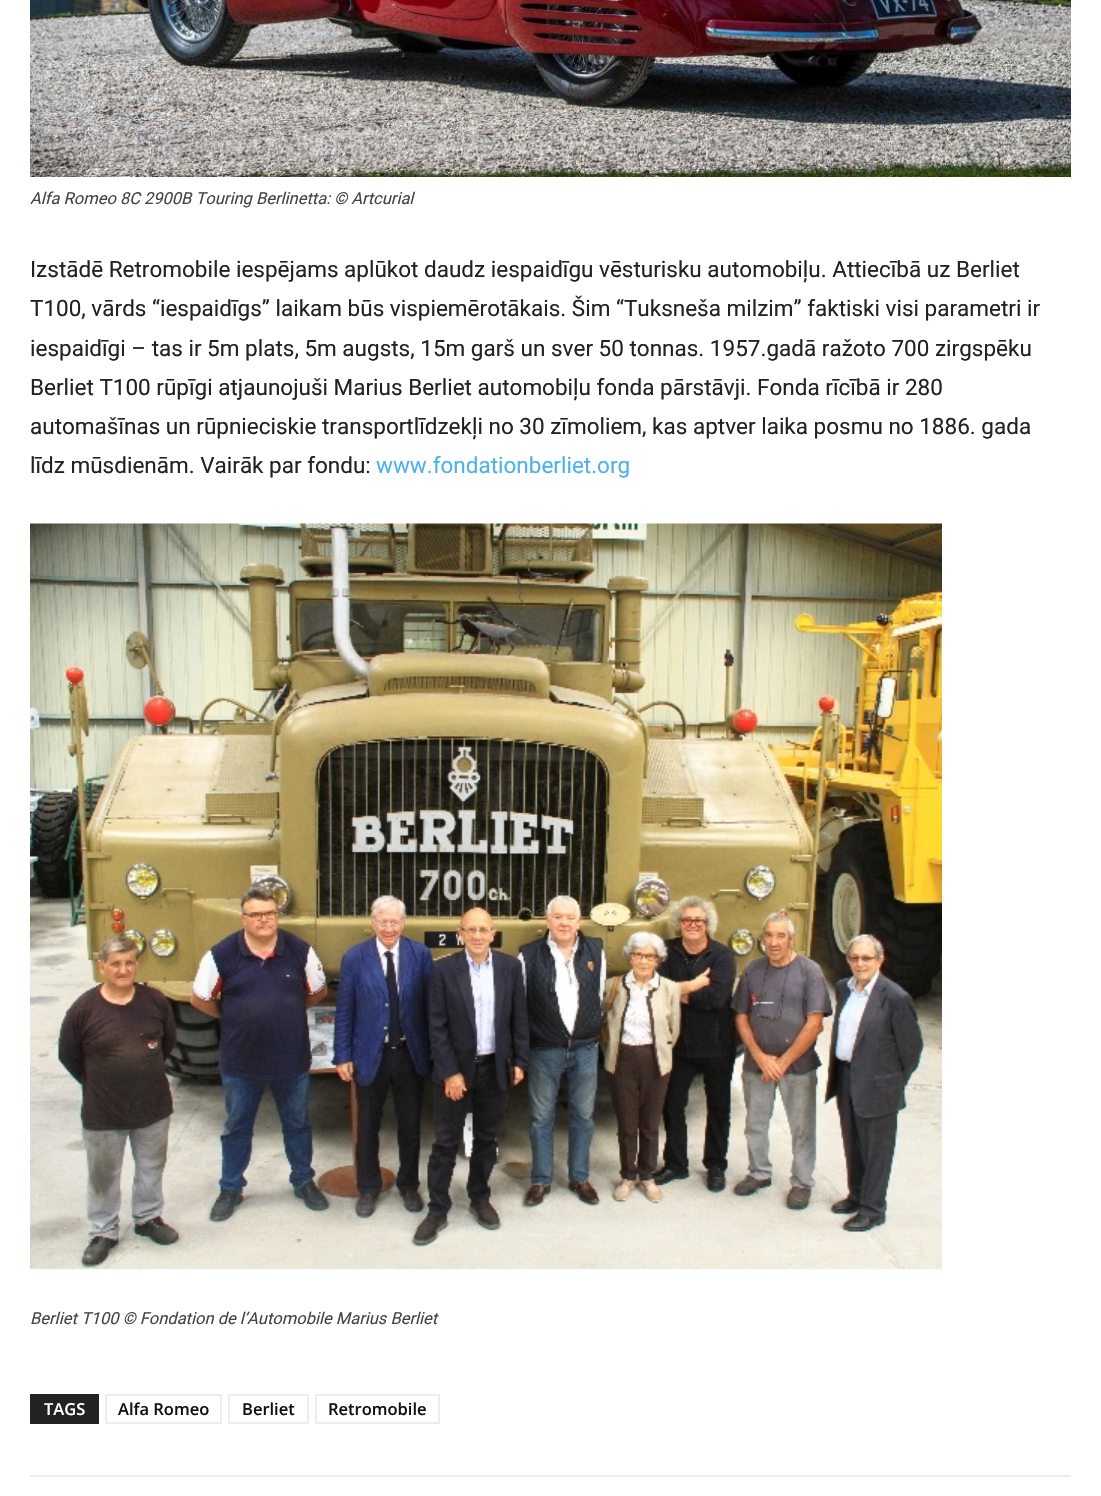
void draw(SkCanvas* canvas) {
	SkPaint fill;
	fill.setAntiAlias(true);
	auto makeFont = [&](const char* family, int weight, float size, bool italic = false) {
		SkFontStyle style(weight, SkFontStyle::kNormal_Width,
			italic ? SkFontStyle::kItalic_Slant : SkFontStyle::kUpright_Slant);
		SkFont result(fontMgr->matchFamilyStyle(family, style), size);
		result.setSubpixel(true);
		return result;
	};
	auto text = [&](const char* s, float x, float y, const SkFont& font) {
		canvas->drawString(s, x, y, font, fill);
	};
	auto box = [&](float l, float t, float r, float b) {
		canvas->drawRect(SkRect::MakeLTRB(l, t, r, b), fill);
	};
	auto picture = [&](const char* path, float l, float t, float r, float b) {
		auto image = SkImages::DeferredFromEncodedData(SkData::MakeFromFileName(path));
		canvas->drawImageRect(image, SkRect::MakeLTRB(l, t, r, b), SkSamplingOptions());
	};
	canvas->clear(0xFFFFFFFF);
	picture("image0.png", 30, 0, 1071, 177);
	picture("image1.png", 30, 523, 942, 1271);
	fill.setColor(0xFF222222);
	box(30, 1394, 99, 1424);
	fill.setStyle(SkPaint::kStroke_Style);
	fill.setStrokeWidth(2);
	fill.setColor(0xFFEDEDED);
	canvas->drawRect(SkRect::MakeLTRB(106, 1395, 221, 1423), fill);
	canvas->drawRect(SkRect::MakeLTRB(229, 1395, 308, 1423), fill);
	canvas->drawRect(SkRect::MakeLTRB(316, 1395, 439, 1423), fill);
	fill.setStyle(SkPaint::kFill_Style);
	box(30, 1475, 1071, 1477);
	auto font1 = makeFont("Roboto", 400, 16.5f, true);
	fill.setColor(0xFF444444);
	text("Alfa Romeo 8C 2900B Touring Berlinetta: © Artcurial", 30, 204, font1);
	auto font2 = makeFont("Roboto", 400, 22.5f);
	fill.setColor(0xFF222222);
	text("Izstādē Retromobile iespējams aplūkot daudz iespaidīgu vēsturisku automobiļu. Attiecībā uz Berliet", 30, 277, font2);
	text("T100, vārds “iespaidīgs” laikam būs vispiemērotākais. Šim “Tuksneša milzim” faktiski visi parametri ir", 30, 316, font2);
	text("iespaidīgi – tas ir 5m plats, 5m augsts, 15m garš un sver 50 tonnas. 1957.gadā ražoto 700 zirgspēku", 30, 356, font2);
	text("Berliet T100 rūpīgi atjaunojuši Marius Berliet automobiļu fonda pārstāvji. Fonda rīcībā ir 280", 30, 395, font2);
	text("automašīnas un rūpnieciskie transportlīdzekļi no 30 zīmoliem, kas aptver laika posmu no 1886. gada", 30, 434, font2);
	text("līdz mūsdienām. Vairāk par fondu:", 30, 473, font2);
	fill.setColor(0xFF4DB2EC);
	text("www.fondationberliet.org", 376, 473, font2);
	fill.setColor(0xFF444444);
	text("Berliet T100 © Fondation de l’Automobile Marius Berliet", 30, 1324, font1);
	auto font3 = makeFont("Open Sans", 600, 16.5f);
	fill.setColor(0xFFFFFFFF);
	text("TAGS", 44, 1415, font3);
	fill.setColor(0xFF111111);
	text("Alfa Romeo", 118, 1415, font3);
	text("Berliet", 242, 1415, font3);
	text("Retromobile", 328, 1415, font3);
}
